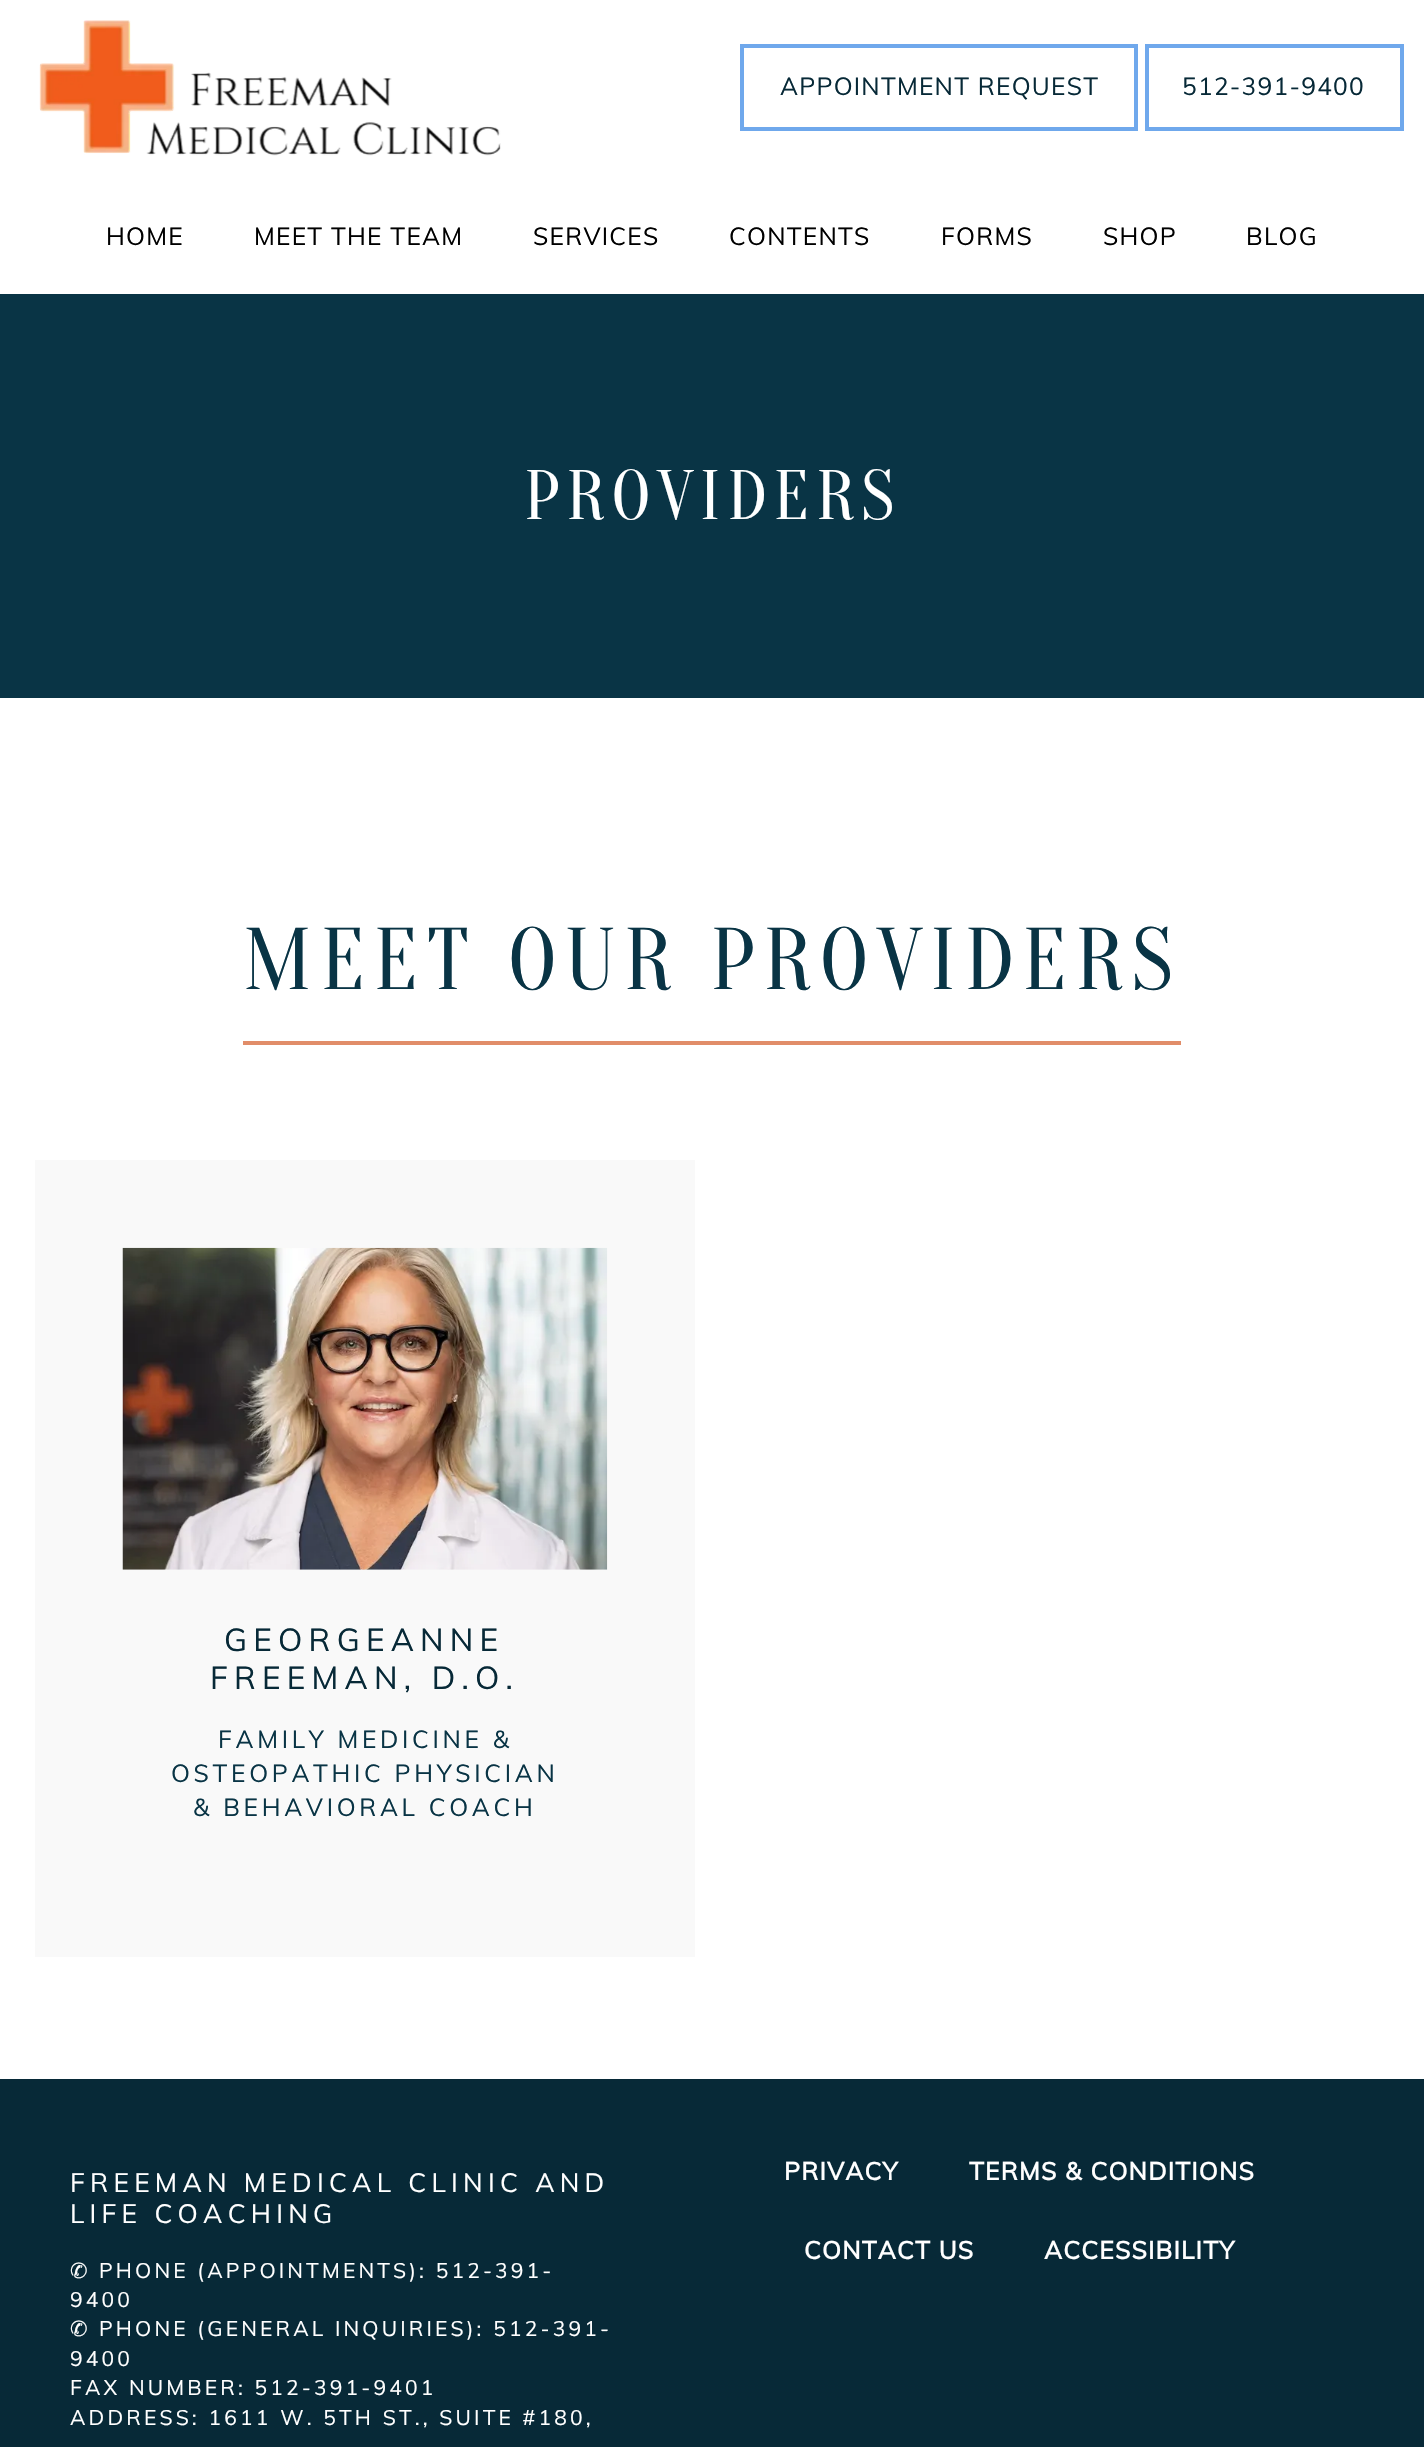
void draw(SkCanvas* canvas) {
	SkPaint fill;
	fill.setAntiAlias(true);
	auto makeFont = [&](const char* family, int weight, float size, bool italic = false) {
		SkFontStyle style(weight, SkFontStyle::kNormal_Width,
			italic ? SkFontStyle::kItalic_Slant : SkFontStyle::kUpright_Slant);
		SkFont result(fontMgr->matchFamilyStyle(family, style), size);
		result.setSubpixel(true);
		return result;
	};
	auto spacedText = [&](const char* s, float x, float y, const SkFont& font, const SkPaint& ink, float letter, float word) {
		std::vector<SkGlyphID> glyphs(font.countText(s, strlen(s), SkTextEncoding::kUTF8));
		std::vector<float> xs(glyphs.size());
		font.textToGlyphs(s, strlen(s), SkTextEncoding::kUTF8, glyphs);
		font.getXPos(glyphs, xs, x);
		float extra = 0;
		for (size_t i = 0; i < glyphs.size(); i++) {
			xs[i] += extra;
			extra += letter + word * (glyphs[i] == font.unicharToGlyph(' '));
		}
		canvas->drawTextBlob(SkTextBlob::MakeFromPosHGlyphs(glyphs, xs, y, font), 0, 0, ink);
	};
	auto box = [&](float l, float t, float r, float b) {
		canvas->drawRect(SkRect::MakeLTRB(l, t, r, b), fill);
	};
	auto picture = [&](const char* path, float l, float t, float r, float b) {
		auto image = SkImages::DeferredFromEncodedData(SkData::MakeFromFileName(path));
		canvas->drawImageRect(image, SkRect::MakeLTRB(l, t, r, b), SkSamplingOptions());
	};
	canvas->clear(0xFFFFFFFF);
	picture("image0.png", 39, 20, 501, 156);
	fill.setStyle(SkPaint::kStroke_Style);
	fill.setStrokeWidth(4);
	fill.setColor(0xFF6FA8EC);
	canvas->drawRect(SkRect::MakeLTRB(742, 46, 1136, 129), fill);
	canvas->drawRect(SkRect::MakeLTRB(1147, 46, 1402, 129), fill);
	fill.setStyle(SkPaint::kFill_Style);
	fill.setColor(0xFF093445);
	box(0, 294, 1424, 698);
	fill.setColor(0xFFE18D69);
	box(243, 1041, 1181, 1045);
	fill.setColor(0xFFF9F9F9);
	box(35, 1160, 695, 1957);
	picture("image1.png", 122, 1247, 608, 1570);
	fill.setColor(0xFF072937);
	box(0, 2079, 1424, 2447);
	auto font1 = makeFont("Muli", 400, 24.5f);
	spacedText("APPOINTMENT REQUEST", 780, 95, font1, fill, 1.25f, 0);
	spacedText("512-391-9400", 1182, 95, font1, fill, 1.25f, 0);
	fill.setColor(0xFF000000);
	spacedText("HOME", 106, 245, font1, fill, 1.25f, 0);
	spacedText("MEET THE TEAM", 254, 245, font1, fill, 1.25f, 0);
	spacedText("SERVICES", 533, 245, font1, fill, 1.25f, 0);
	spacedText("CONTENTS", 729, 245, font1, fill, 1.25f, 0);
	spacedText("FORMS", 941, 245, font1, fill, 1.25f, 0);
	spacedText("SHOP", 1103, 245, font1, fill, 1.25f, 0);
	spacedText("BLOG", 1246, 245, font1, fill, 1.25f, 0);
	auto font2 = makeFont("Oranienbaum", 400, 70);
	fill.setColor(0xFFFFFFFF);
	spacedText("PROVIDERS", 524, 519, font2, fill, 7, 0);
	auto font3 = makeFont("Oranienbaum", 400, 87.5f);
	fill.setColor(0xFF093445);
	spacedText("MEET OUR PROVIDERS", 243, 989, font3, fill, 8.75f, 0);
	auto font4 = makeFont("Muli", 400, 31.5f);
	fill.setColor(0xFF072937);
	spacedText("GEORGEANNE", 224, 1651, font4, fill, 6.25f, 0);
	spacedText("FREEMAN, D.O.", 210, 1689, font4, fill, 6.25f, 0);
	fill.setColor(0xFF093445);
	spacedText("FAMILY MEDICINE &", 218, 1748, font1, fill, 3.7f, 0);
	spacedText("OSTEOPATHIC PHYSICIAN", 171, 1782, font1, fill, 3.7f, 0);
	spacedText("& BEHAVIORAL COACH", 193, 1816, font1, fill, 3.7f, 0);
	auto font5 = makeFont("Muli", 400, 26.25f);
	fill.setColor(0xFFFFFFFF);
	spacedText("FREEMAN MEDICAL CLINIC AND", 70, 2192, font5, fill, 5.25f, 0);
	spacedText("LIFE COACHING", 70, 2223, font5, fill, 5.25f, 0);
	auto font6 = makeFont("DejaVu Sans", 400, 21);
	spacedText("✆", 70, 2278, font6, fill, 3.15f, 0);
	auto font7 = makeFont("Muli", 400, 21);
	spacedText("PHONE (APPOINTMENTS): 512-391-", 99, 2278, font7, fill, 3.15f, 0);
	spacedText("9400", 70, 2307, font7, fill, 3.15f, 0);
	spacedText("✆", 70, 2336, font6, fill, 3.15f, 0);
	spacedText("PHONE (GENERAL INQUIRIES): 512-391-", 99, 2336, font7, fill, 3.15f, 0);
	spacedText("9400", 70, 2366, font7, fill, 3.15f, 0);
	spacedText("FAX NUMBER: 512-391-9401", 70, 2395, font7, fill, 3.15f, 0);
	spacedText("ADDRESS: 1611 W. 5TH ST., SUITE #180,", 70, 2425, font7, fill, 3.15f, 0);
	auto font8 = makeFont("Muli", 700, 24.5f);
	spacedText("PRIVACY", 784, 2180, font8, fill, 1.25f, 0);
	spacedText("TERMS & CONDITIONS", 969, 2180, font8, fill, 1.25f, 0);
	spacedText("CONTACT US", 804, 2259, font8, fill, 1.25f, 0);
	spacedText("ACCESSIBILITY", 1044, 2259, font8, fill, 1.25f, 0);
}
